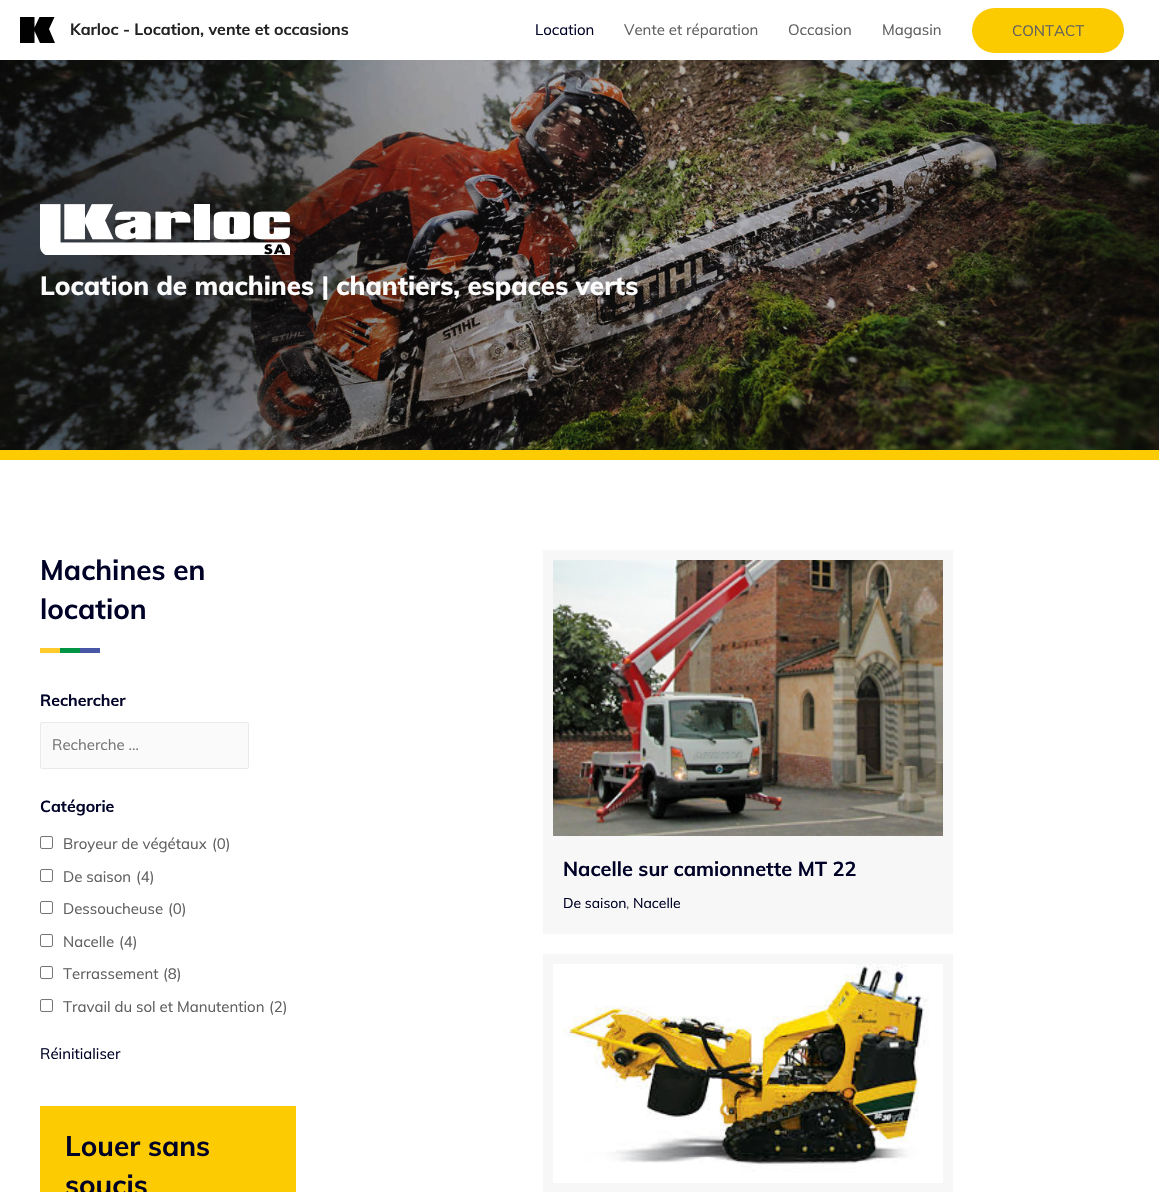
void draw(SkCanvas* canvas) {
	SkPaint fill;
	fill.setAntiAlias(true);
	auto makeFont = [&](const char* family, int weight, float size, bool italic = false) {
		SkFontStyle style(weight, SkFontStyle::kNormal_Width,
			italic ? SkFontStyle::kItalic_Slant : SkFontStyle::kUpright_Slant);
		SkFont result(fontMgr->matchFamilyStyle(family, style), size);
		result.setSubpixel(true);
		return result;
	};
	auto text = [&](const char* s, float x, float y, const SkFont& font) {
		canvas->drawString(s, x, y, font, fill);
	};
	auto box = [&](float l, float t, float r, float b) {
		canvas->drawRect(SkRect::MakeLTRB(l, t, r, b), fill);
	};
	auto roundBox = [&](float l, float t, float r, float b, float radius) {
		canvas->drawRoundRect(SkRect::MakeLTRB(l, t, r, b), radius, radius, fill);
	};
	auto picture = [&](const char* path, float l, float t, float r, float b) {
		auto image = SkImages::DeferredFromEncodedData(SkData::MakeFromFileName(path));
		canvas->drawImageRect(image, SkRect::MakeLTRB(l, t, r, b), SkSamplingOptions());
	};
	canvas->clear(0xFFFFFFFF);
	fill.setColor(0xFF010101);
	canvas->drawPath(SkPathBuilder().moveTo(20, 17).lineTo(34.5f, 17).lineTo(34.5f, 27.5f).lineTo(39.5f, 17).lineTo(54.5f, 17).lineTo(49, 29).lineTo(55, 43).lineTo(40, 43).lineTo(34.5f, 31).lineTo(34.5f, 43).lineTo(20, 43).close().detach(), fill);
	fill.setColor(0xFFFBCB00);
	roundBox(972, 8, 1124, 53, 22.5f);
	picture("image0.png", 0, 60, 1159, 450);
	fill.setColor(0xFFFCCB01);
	box(0, 450, 1159, 460);
	picture("image1.png", 40, 204, 290, 255);
	fill.setColor(0xFFFFCA2B);
	box(40, 648, 60, 653);
	fill.setColor(0xFF009444);
	box(60, 648, 80, 653);
	fill.setColor(0xFF4757A6);
	box(80, 648, 100, 653);
	fill.setColor(0xFFFAFAFA);
	canvas->drawRoundRect(SkRect::MakeLTRB(40.5f, 722.5f, 248.5f, 768.5f), 1.5f, 1.5f, fill);
	fill.setStyle(SkPaint::kStroke_Style);
	fill.setStrokeWidth(1);
	fill.setColor(0xFFEAEAEA);
	canvas->drawRoundRect(SkRect::MakeLTRB(40.5f, 722.5f, 248.5f, 768.5f), 1.5f, 1.5f, fill);
	fill.setColor(0xFF767676);
	canvas->drawRoundRect(SkRect::MakeLTRB(40.5f, 836.5f, 52.5f, 848.5f), 1.5f, 1.5f, fill);
	canvas->drawRoundRect(SkRect::MakeLTRB(40.5f, 869.5f, 52.5f, 881.5f), 1.5f, 1.5f, fill);
	canvas->drawRoundRect(SkRect::MakeLTRB(40.5f, 901.5f, 52.5f, 913.5f), 1.5f, 1.5f, fill);
	canvas->drawRoundRect(SkRect::MakeLTRB(40.5f, 934.5f, 52.5f, 946.5f), 1.5f, 1.5f, fill);
	canvas->drawRoundRect(SkRect::MakeLTRB(40.5f, 966.5f, 52.5f, 978.5f), 1.5f, 1.5f, fill);
	canvas->drawRoundRect(SkRect::MakeLTRB(40.5f, 999.5f, 52.5f, 1011.5f), 1.5f, 1.5f, fill);
	fill.setStyle(SkPaint::kFill_Style);
	fill.setColor(0xFFFCCB01);
	box(40, 1106, 296, 1192);
	fill.setColor(0xFFF7F7F7);
	box(543, 550, 953, 934);
	picture("image2.png", 553, 560, 943, 836);
	box(543, 954, 953, 1192);
	picture("image3.png", 553, 964, 943, 1183);
	auto font1 = makeFont("Muli", 700, 16);
	fill.setColor(0xFF222222);
	text("Karloc - Location, vente et occasions", 70, 35, font1);
	auto font2 = makeFont("Muli", 400, 15);
	fill.setColor(0xFF000126);
	text("Location", 535, 35, font2);
	fill.setColor(0xFF5F5F5F);
	text("Vente et réparation", 624, 35, font2);
	text("Occasion", 788, 35, font2);
	text("Magasin", 882, 35, font2);
	text("CONTACT", 1012, 36, font2);
	auto font3 = makeFont("Muli", 800, 26);
	fill.setColor(0xFFFCFCFC);
	text("Location de machines | chantiers, espaces verts", 40, 295, font3);
	auto font4 = makeFont("Muli", 700, 28);
	fill.setColor(0xFF000126);
	text("Machines en", 40, 580, font4);
	text("location", 40, 619, font4);
	text("Rechercher", 40, 706, font1);
	fill.setColor(0xFF757575);
	text("Recherche …", 52, 750, font2);
	fill.setColor(0xFF000126);
	text("Catégorie", 40, 812, font1);
	fill.setColor(0xFF5F5F5F);
	text("Broyeur de végétaux", 63, 849, font2);
	text("(0)", 212, 849, font2);
	text("De saison", 63, 882, font2);
	text("(4)", 136, 882, font2);
	text("Dessoucheuse", 63, 914, font2);
	text("(0)", 168, 914, font2);
	text("Nacelle", 63, 947, font2);
	text("(4)", 119, 947, font2);
	text("Terrassement", 63, 979, font2);
	text("(8)", 163, 979, font2);
	text("Travail du sol et Manutention", 63, 1012, font2);
	text("(2)", 269, 1012, font2);
	fill.setColor(0xFF000126);
	text("Réinitialiser", 40, 1059, font2);
	text("Louer sans", 65, 1156, font4);
	text("soucis", 65, 1195, font4);
	auto font5 = makeFont("Muli", 700, 20);
	text("Nacelle sur camionnette MT 22", 563, 876, font5);
	auto font6 = makeFont("Muli", 400, 14);
	text("De saison", 563, 908, font6);
	fill.setColor(0xFF5F5F5F);
	text(",", 626, 908, font6);
	fill.setColor(0xFF000126);
	text("Nacelle", 633, 908, font6);
}
